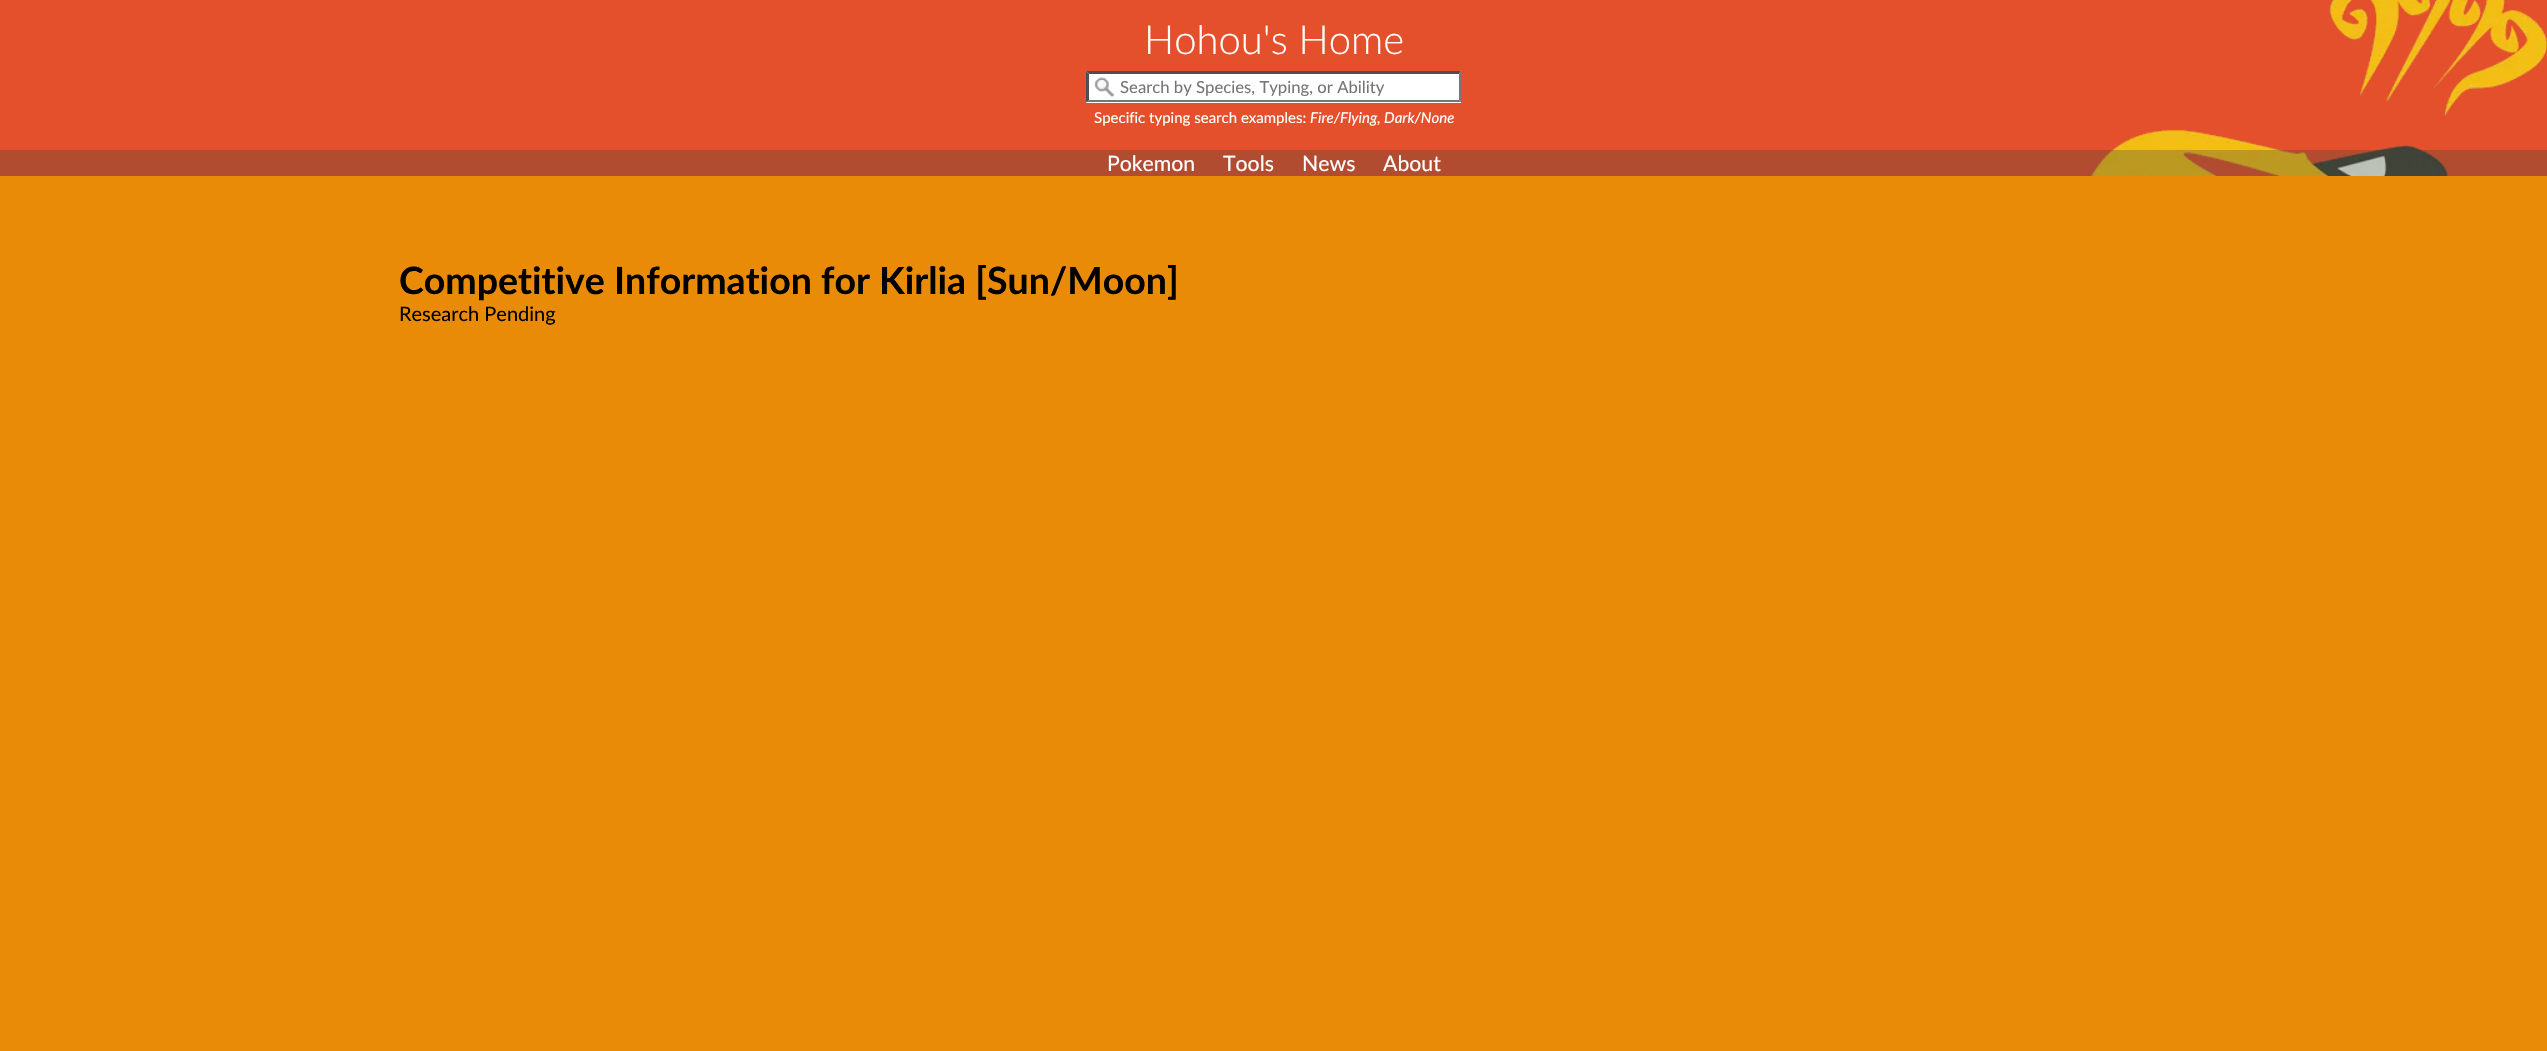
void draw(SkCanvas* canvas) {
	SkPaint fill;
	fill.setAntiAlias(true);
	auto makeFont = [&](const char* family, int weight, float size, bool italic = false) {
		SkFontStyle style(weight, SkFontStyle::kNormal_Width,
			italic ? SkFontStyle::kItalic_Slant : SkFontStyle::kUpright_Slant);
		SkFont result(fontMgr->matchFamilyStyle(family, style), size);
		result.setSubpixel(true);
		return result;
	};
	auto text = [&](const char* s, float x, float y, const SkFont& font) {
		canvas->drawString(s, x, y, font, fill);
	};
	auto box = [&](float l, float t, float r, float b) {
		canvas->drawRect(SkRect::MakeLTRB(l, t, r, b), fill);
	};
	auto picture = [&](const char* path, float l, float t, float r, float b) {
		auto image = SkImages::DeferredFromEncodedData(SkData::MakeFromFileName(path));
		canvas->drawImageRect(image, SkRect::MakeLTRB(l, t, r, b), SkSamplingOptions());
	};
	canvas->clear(0xFFE98B07);
	fill.setColor(0xFFE4502C);
	box(0, 0, 2547, 176);
	picture("image0.png", 2091, 0, 2547, 176);
	fill.setColor(0xFFFFFFFF);
	box(1086, 71, 1461, 103);
	picture("image1.png", 1094, 77, 1114, 97);
	fill.setColor(0xFF4F4F4F);
	canvas->drawPath(SkPathBuilder().moveTo(1086, 71).lineTo(1461, 71).lineTo(1459, 74).lineTo(1089, 74).close().detach(), fill);
	fill.setColor(0xFF767676);
	canvas->drawPath(SkPathBuilder().moveTo(1461, 71).lineTo(1461, 102.5f).lineTo(1459, 100).lineTo(1459, 74).close().detach(), fill);
	canvas->drawPath(SkPathBuilder().moveTo(1461, 102).lineTo(1086, 102).lineTo(1089, 100).lineTo(1459, 100).close().detach(), fill);
	fill.setColor(0xFF4F4F4F);
	canvas->drawPath(SkPathBuilder().moveTo(1086, 102.5f).lineTo(1086, 71).lineTo(1089, 74).lineTo(1089, 100).close().detach(), fill);
	fill.setColor(0x4D404338);
	box(0, 150, 2547, 176);
	auto font1 = makeFont("Lato", 300, 40);
	fill.setColor(0xFFFFFFFF);
	text("Hohou's Home", 1144, 54, font1);
	auto font2 = makeFont("Lato", 400, 16.7f);
	fill.setColor(0xFF757575);
	text("Search by Species, Typing, or Ability", 1120, 93, font2);
	auto font3 = makeFont("Lato", 400, 15);
	fill.setColor(0xFFFFFFFF);
	text("Specific typing search examples:", 1094, 123, font3);
	auto font4 = makeFont("Lato", 400, 15, true);
	text("Fire/Flying, Dark/None", 1310, 123, font4);
	auto font5 = makeFont("Lato", 400, 21.25f);
	text("Pokemon", 1107, 171, font5);
	text("Tools", 1223, 171, font5);
	text("News", 1302, 171, font5);
	text("About", 1383, 171, font5);
	auto font6 = makeFont("Lato", 700, 37.5f);
	fill.setColor(0xFF000000);
	text("Competitive Information for Kirlia [Sun/Moon]", 399, 294, font6);
	auto font7 = makeFont("Lato", 400, 20);
	text("Research Pending", 399, 321, font7);
}
